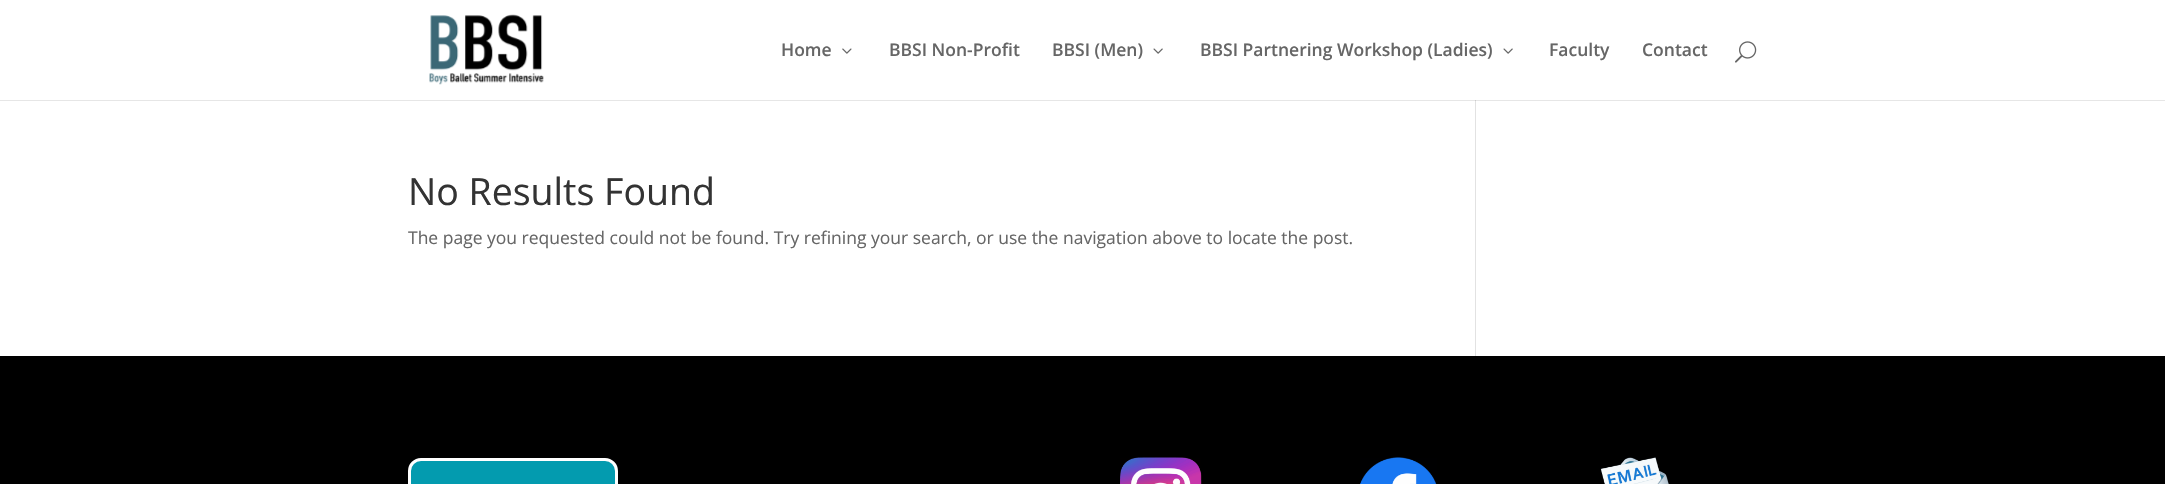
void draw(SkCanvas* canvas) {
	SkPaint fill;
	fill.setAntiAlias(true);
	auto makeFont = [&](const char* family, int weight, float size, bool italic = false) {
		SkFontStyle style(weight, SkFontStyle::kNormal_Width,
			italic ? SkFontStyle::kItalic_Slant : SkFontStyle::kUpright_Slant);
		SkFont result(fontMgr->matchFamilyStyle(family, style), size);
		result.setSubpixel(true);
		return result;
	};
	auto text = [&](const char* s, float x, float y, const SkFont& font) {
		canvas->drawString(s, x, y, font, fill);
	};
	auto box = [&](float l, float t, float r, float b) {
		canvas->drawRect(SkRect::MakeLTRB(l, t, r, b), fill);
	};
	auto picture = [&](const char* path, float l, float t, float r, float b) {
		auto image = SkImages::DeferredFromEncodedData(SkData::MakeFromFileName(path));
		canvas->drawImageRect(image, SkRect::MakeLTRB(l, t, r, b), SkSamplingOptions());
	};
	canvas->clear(0xFFFFFFFF);
	fill.setColor(0xFFE6E6E6);
	box(0, 100, 2165, 101);
	picture("image0.png", 429, 14, 544, 85);
	picture("image1.png", 842, 48, 852, 54);
	picture("image2.png", 1153, 48, 1163, 54);
	picture("image2.png", 1503, 48, 1513, 54);
	picture("image3.png", 1735, 41, 1757, 63);
	fill.setColor(0xFFE2E2E2);
	box(1475, 100, 1476, 356);
	fill.setColor(0xFFCBCBCB);
	box(1475, 100, 1476, 101);
	fill.setColor(0xFF000000);
	box(0, 356, 2165, 484);
	fill.setColor(0xFF039BAF);
	canvas->drawRoundRect(SkRect::MakeLTRB(409.5f, 459.5f, 616.5f, 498.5f), 11.5f, 11.5f, fill);
	fill.setStyle(SkPaint::kStroke_Style);
	fill.setStrokeWidth(3);
	fill.setColor(0xFFFFFFFF);
	canvas->drawRoundRect(SkRect::MakeLTRB(409.5f, 459.5f, 616.5f, 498.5f), 11.5f, 11.5f, fill);
	picture("image4.png", 1120, 457, 1202, 484);
	picture("image5.png", 1360, 457, 1437, 484);
	picture("image6.png", 1600, 457, 1669, 484);
	auto font1 = makeFont("Open Sans", 600, 17.5f);
	fill.setStyle(SkPaint::kFill_Style);
	fill.setColor(0xFF666666);
	text("Home", 781, 56, font1);
	text("BBSI Non-Profit", 889, 56, font1);
	text("BBSI (Men)", 1052, 56, font1);
	text("BBSI Partnering Workshop (Ladies)", 1200, 56, font1);
	text("Faculty", 1549, 56, font1);
	text("Contact", 1642, 56, font1);
	auto font2 = makeFont("Open Sans", 400, 37.5f);
	fill.setColor(0xFF333333);
	text("No Results Found", 408, 205, font2);
	auto font3 = makeFont("Open Sans", 400, 17.5f);
	fill.setColor(0xFF666666);
	text("The page you requested could not be found. Try refining your search, or use the navigation above to locate the post.", 408, 244, font3);
}
